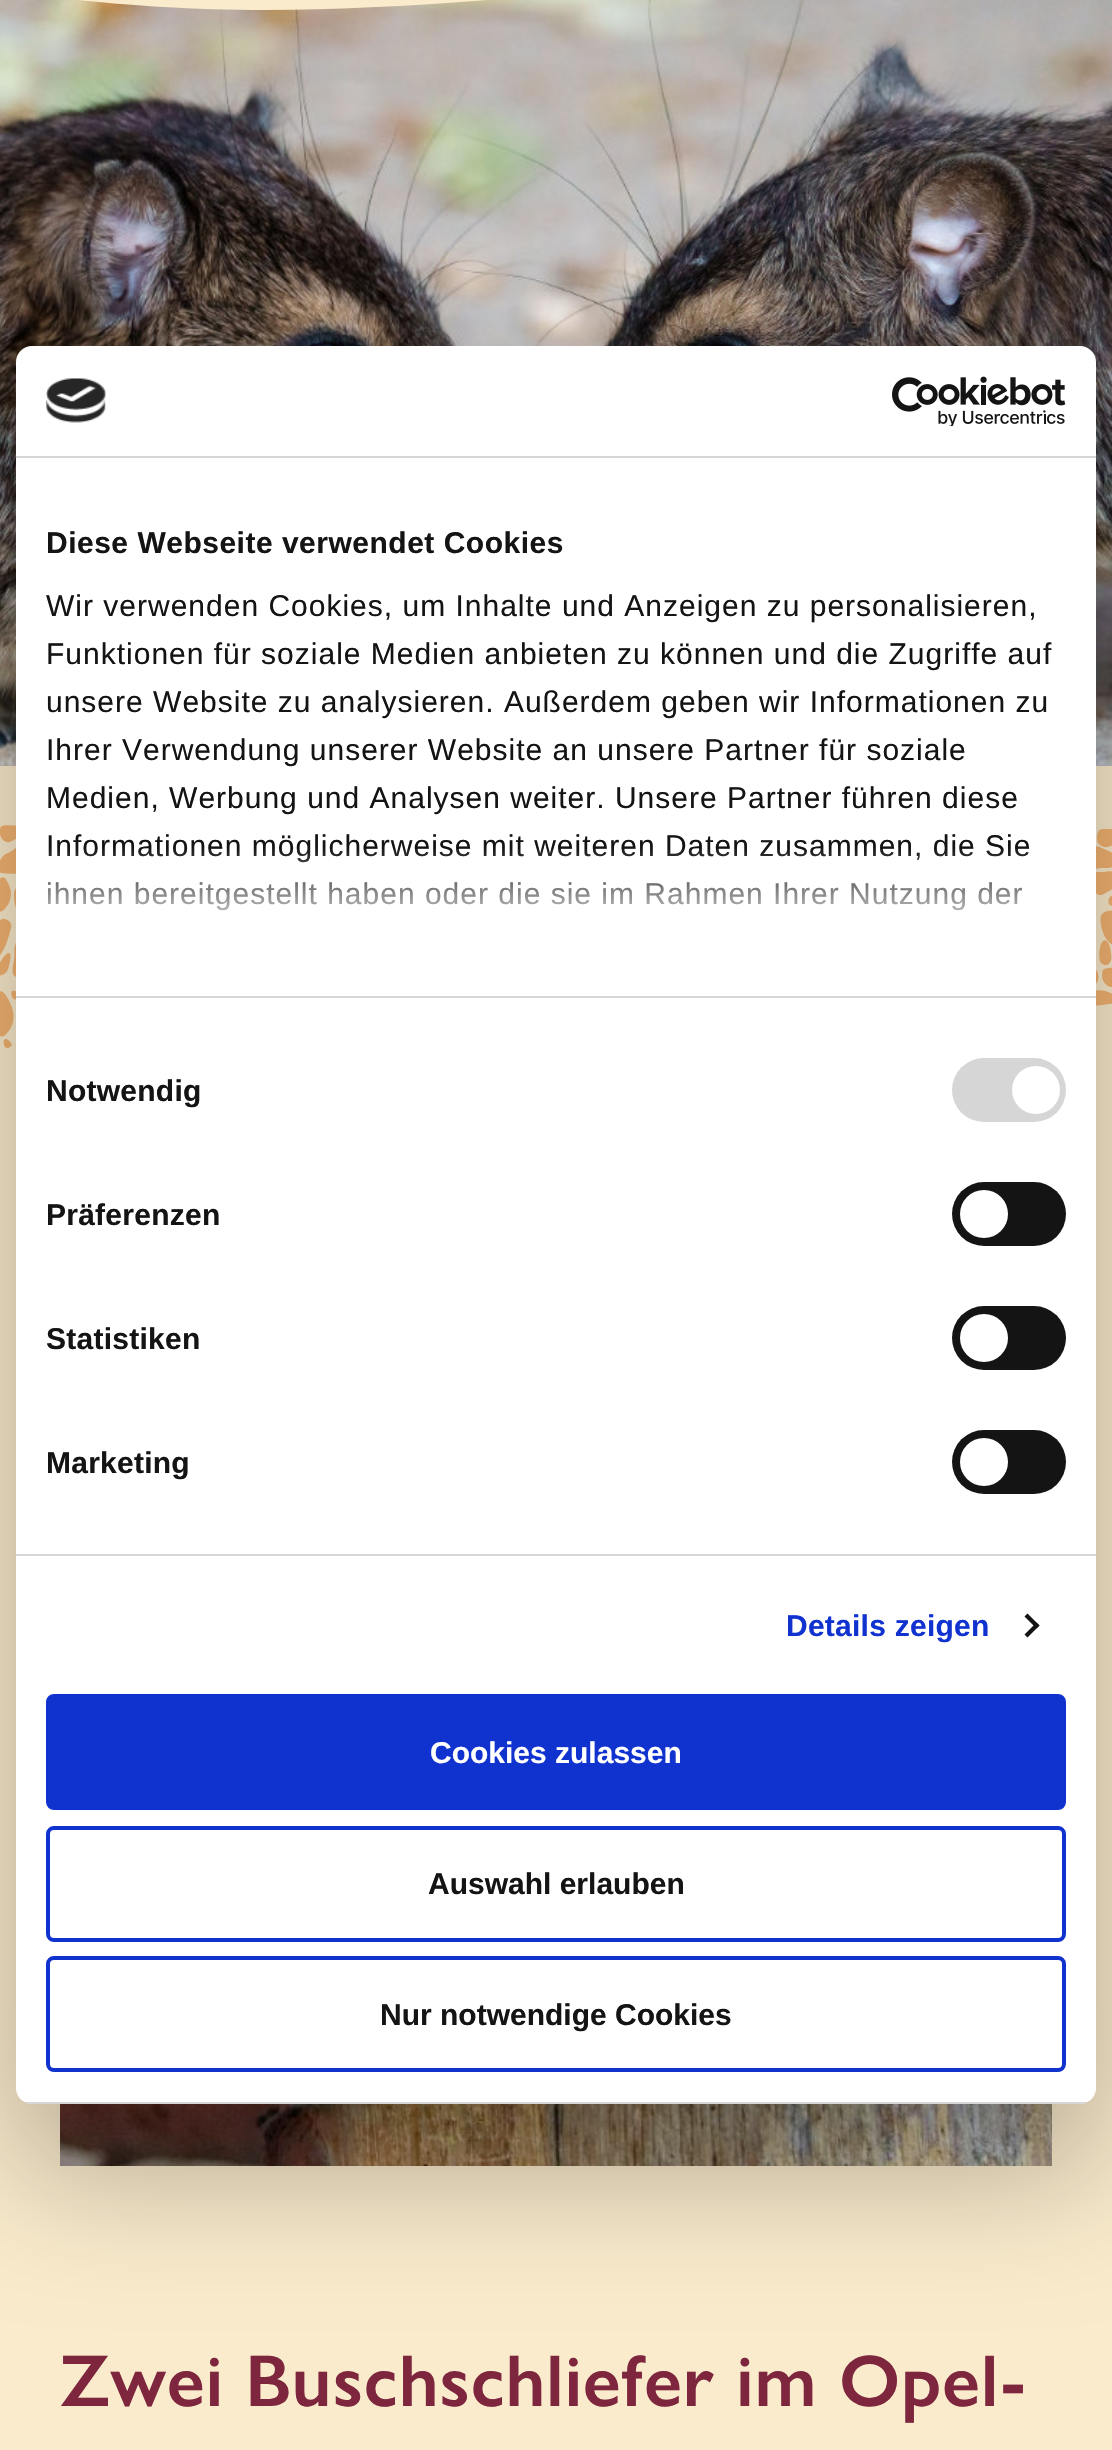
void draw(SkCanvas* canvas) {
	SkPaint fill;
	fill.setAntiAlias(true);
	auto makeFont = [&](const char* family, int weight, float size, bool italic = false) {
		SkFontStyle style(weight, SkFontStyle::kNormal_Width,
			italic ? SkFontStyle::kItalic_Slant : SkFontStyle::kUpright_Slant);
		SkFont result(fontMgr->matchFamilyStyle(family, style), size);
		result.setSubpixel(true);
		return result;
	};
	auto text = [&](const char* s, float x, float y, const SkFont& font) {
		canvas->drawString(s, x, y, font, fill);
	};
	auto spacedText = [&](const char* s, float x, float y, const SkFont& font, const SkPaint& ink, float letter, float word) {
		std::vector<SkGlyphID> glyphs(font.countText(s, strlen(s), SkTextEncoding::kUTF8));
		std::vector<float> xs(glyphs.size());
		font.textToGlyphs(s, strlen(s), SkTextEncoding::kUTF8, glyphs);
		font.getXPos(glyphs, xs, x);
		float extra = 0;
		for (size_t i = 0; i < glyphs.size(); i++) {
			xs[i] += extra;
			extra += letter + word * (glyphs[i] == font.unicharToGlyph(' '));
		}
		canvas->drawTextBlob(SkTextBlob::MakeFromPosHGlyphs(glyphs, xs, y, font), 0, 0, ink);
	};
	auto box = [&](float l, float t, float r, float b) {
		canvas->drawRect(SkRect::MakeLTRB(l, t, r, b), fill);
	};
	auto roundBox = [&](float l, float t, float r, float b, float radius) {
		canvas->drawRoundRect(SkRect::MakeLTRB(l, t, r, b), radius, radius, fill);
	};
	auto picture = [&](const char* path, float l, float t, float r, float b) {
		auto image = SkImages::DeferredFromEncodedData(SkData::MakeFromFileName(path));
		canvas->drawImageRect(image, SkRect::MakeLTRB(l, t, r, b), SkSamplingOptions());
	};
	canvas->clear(0xFFFAEBCC);
	picture("image0.png", 0, 0, 1112, 766);
	fill.setColor(0xFFFAEBCC);
	canvas->drawPath(SkPathBuilder(SkPathFillType::kEvenOdd).moveTo(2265, -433).lineTo(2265, -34).cubicTo(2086, -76, 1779, -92, 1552, -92).cubicTo(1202, -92, 604, 10, 266, 10).cubicTo(118, 10, 0, -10, 0, -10).lineTo(0, -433).close().detach(), fill);
	picture("image3.png", 0, 825, 1112, 1049);
	picture("image4.png", 60, 2104, 1052, 2166);
	fill.setColor(0x4D000000);
	fill.setMaskFilter(SkMaskFilter::MakeBlur(kNormal_SkBlurStyle, 68));
	canvas->drawRoundRect(SkRect::MakeLTRB(16, 410, 1096, 2168), 16, 16, fill);
	fill.setMaskFilter(nullptr);
	fill.setColor(0xFFFFFFFF);
	roundBox(16, 346, 1096, 2104, 16);
	fill.setColor(0xFFD6D6D6);
	box(16, 456, 1096, 458);
	picture("image1.png", 46, 378, 106, 423);
	picture("image2.png", 892, 376, 1066, 426);
	box(16, 996, 1096, 998);
	box(16, 1554, 1096, 1556);
	roundBox(952, 1058, 1066, 1122, 32);
	fill.setColor(0xFFFFFFFF);
	canvas->drawCircle(1036, 1090, 24, fill);
	fill.setColor(0xFF141414);
	roundBox(952, 1182, 1066, 1246, 32);
	fill.setColor(0xFFFFFFFF);
	canvas->drawCircle(984, 1214, 24, fill);
	fill.setColor(0xFF141414);
	roundBox(952, 1306, 1066, 1370, 32);
	fill.setColor(0xFFFFFFFF);
	canvas->drawCircle(984, 1338, 24, fill);
	fill.setColor(0xFF141414);
	roundBox(952, 1430, 1066, 1494, 32);
	fill.setColor(0xFFFFFFFF);
	canvas->drawCircle(984, 1462, 24, fill);
	fill.setColor(0xFF141414);
	canvas->drawPath(SkPathBuilder().moveTo(1027.5f, 1613.5f).lineTo(1039.5f, 1625.5f).lineTo(1036.5f, 1628.5f).lineTo(1024.5f, 1616.5f).close().detach(), fill);
	canvas->drawPath(SkPathBuilder().moveTo(1036.5f, 1622.5f).lineTo(1039.5f, 1625.5f).lineTo(1027.5f, 1637.5f).lineTo(1024.5f, 1634.5f).close().detach(), fill);
	canvas->save();
	canvas->clipPath(SkPathBuilder().moveTo(32, 346).lineTo(1080, 346).cubicTo(1089, 346, 1096, 353, 1096, 362).lineTo(1096, 2088).cubicTo(1096, 2097, 1089, 2104, 1080, 2104).lineTo(32, 2104).cubicTo(23, 2104, 16, 2097, 16, 2088).lineTo(16, 362).cubicTo(16, 353, 23, 346, 32, 346).close().detach(), true);
	fill.setColor(0xFFD6D6D6);
	box(16, 2102, 1096, 2104);
	canvas->restore();
	fill.setColor(0xFF1032CF);
	canvas->drawRoundRect(SkRect::MakeLTRB(48, 1696, 1064, 1808), 6, 6, fill);
	fill.setStyle(SkPaint::kStroke_Style);
	fill.setStrokeWidth(4);
	canvas->drawRoundRect(SkRect::MakeLTRB(48, 1696, 1064, 1808), 6, 6, fill);
	canvas->drawRoundRect(SkRect::MakeLTRB(48, 1828, 1064, 1940), 6, 6, fill);
	canvas->drawRoundRect(SkRect::MakeLTRB(48, 1958, 1064, 2070), 6, 6, fill);
	auto font1 = makeFont("Liberation Sans", 700, 30);
	fill.setStyle(SkPaint::kFill_Style);
	fill.setColor(0xFF141414);
	spacedText("Diese Webseite verwendet Cookies", 46, 553, font1, fill, 0.5f, 0);
	auto font2 = makeFont("Liberation Sans", 400, 30);
	spacedText("Wir verwenden Cookies, um Inhalte und Anzeigen zu personalisieren,", 46, 616, font2, fill, 1, 0);
	spacedText("Funktionen für soziale Medien anbieten zu können und die Zugriffe auf", 46, 664, font2, fill, 1, 0);
	spacedText("unsere Website zu analysieren. Außerdem geben wir Informationen zu", 46, 712, font2, fill, 1, 0);
	spacedText("Ihrer Verwendung unserer Website an unsere Partner für soziale", 46, 760, font2, fill, 1, 0);
	spacedText("Medien, Werbung und Analysen weiter. Unsere Partner führen diese", 46, 808, font2, fill, 1, 0);
	spacedText("Informationen möglicherweise mit weiteren Daten zusammen, die Sie", 46, 856, font2, fill, 1, 0);
	spacedText("ihnen bereitgestellt haben oder die sie im Rahmen Ihrer Nutzung der", 46, 904, font2, fill, 1, 0);
	{
		const SkColor colors[] = {0xFFFFFFFF, 0xCCFFFFFF, 0x00FFFFFF};
		const float stops[] = {0, 0.5f, 1};
		const SkPoint ends[] = {{543, 997}, {543, 847}};
		fill.setShader(SkGradientShader::MakeLinear(ends, colors, stops, 3, SkTileMode::kClamp));
		fill.setAlpha(255);
	}
	box(48, 849, 1029, 911);
	fill.setShader(nullptr);
	fill.setColor(0xFF141414);
	spacedText("Notwendig", 46, 1101, font1, fill, 0.25f, 0);
	spacedText("Präferenzen", 46, 1225, font1, fill, 0.25f, 0);
	spacedText("Statistiken", 46, 1349, font1, fill, 0.25f, 0);
	spacedText("Marketing", 46, 1473, font1, fill, 0.25f, 0);
	fill.setColor(0xFF1032CF);
	spacedText("Details zeigen", 786, 1636, font1, fill, 0.25f, 0);
	fill.setColor(0xFFFFFFFF);
	text("Cookies zulassen", 430, 1763, font1);
	fill.setColor(0xFF141414);
	text("Auswahl erlauben", 428, 1894, font1);
	text("Nur notwendige Cookies", 380, 2025, font1);
	auto font3 = makeFont("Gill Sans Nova", 600, 73.6f);
	fill.setColor(0xFF7E263E);
	spacedText("Zwei Buschschliefer im Opel-", 60, 2406, font3, fill, 0.7f, 0);
}
